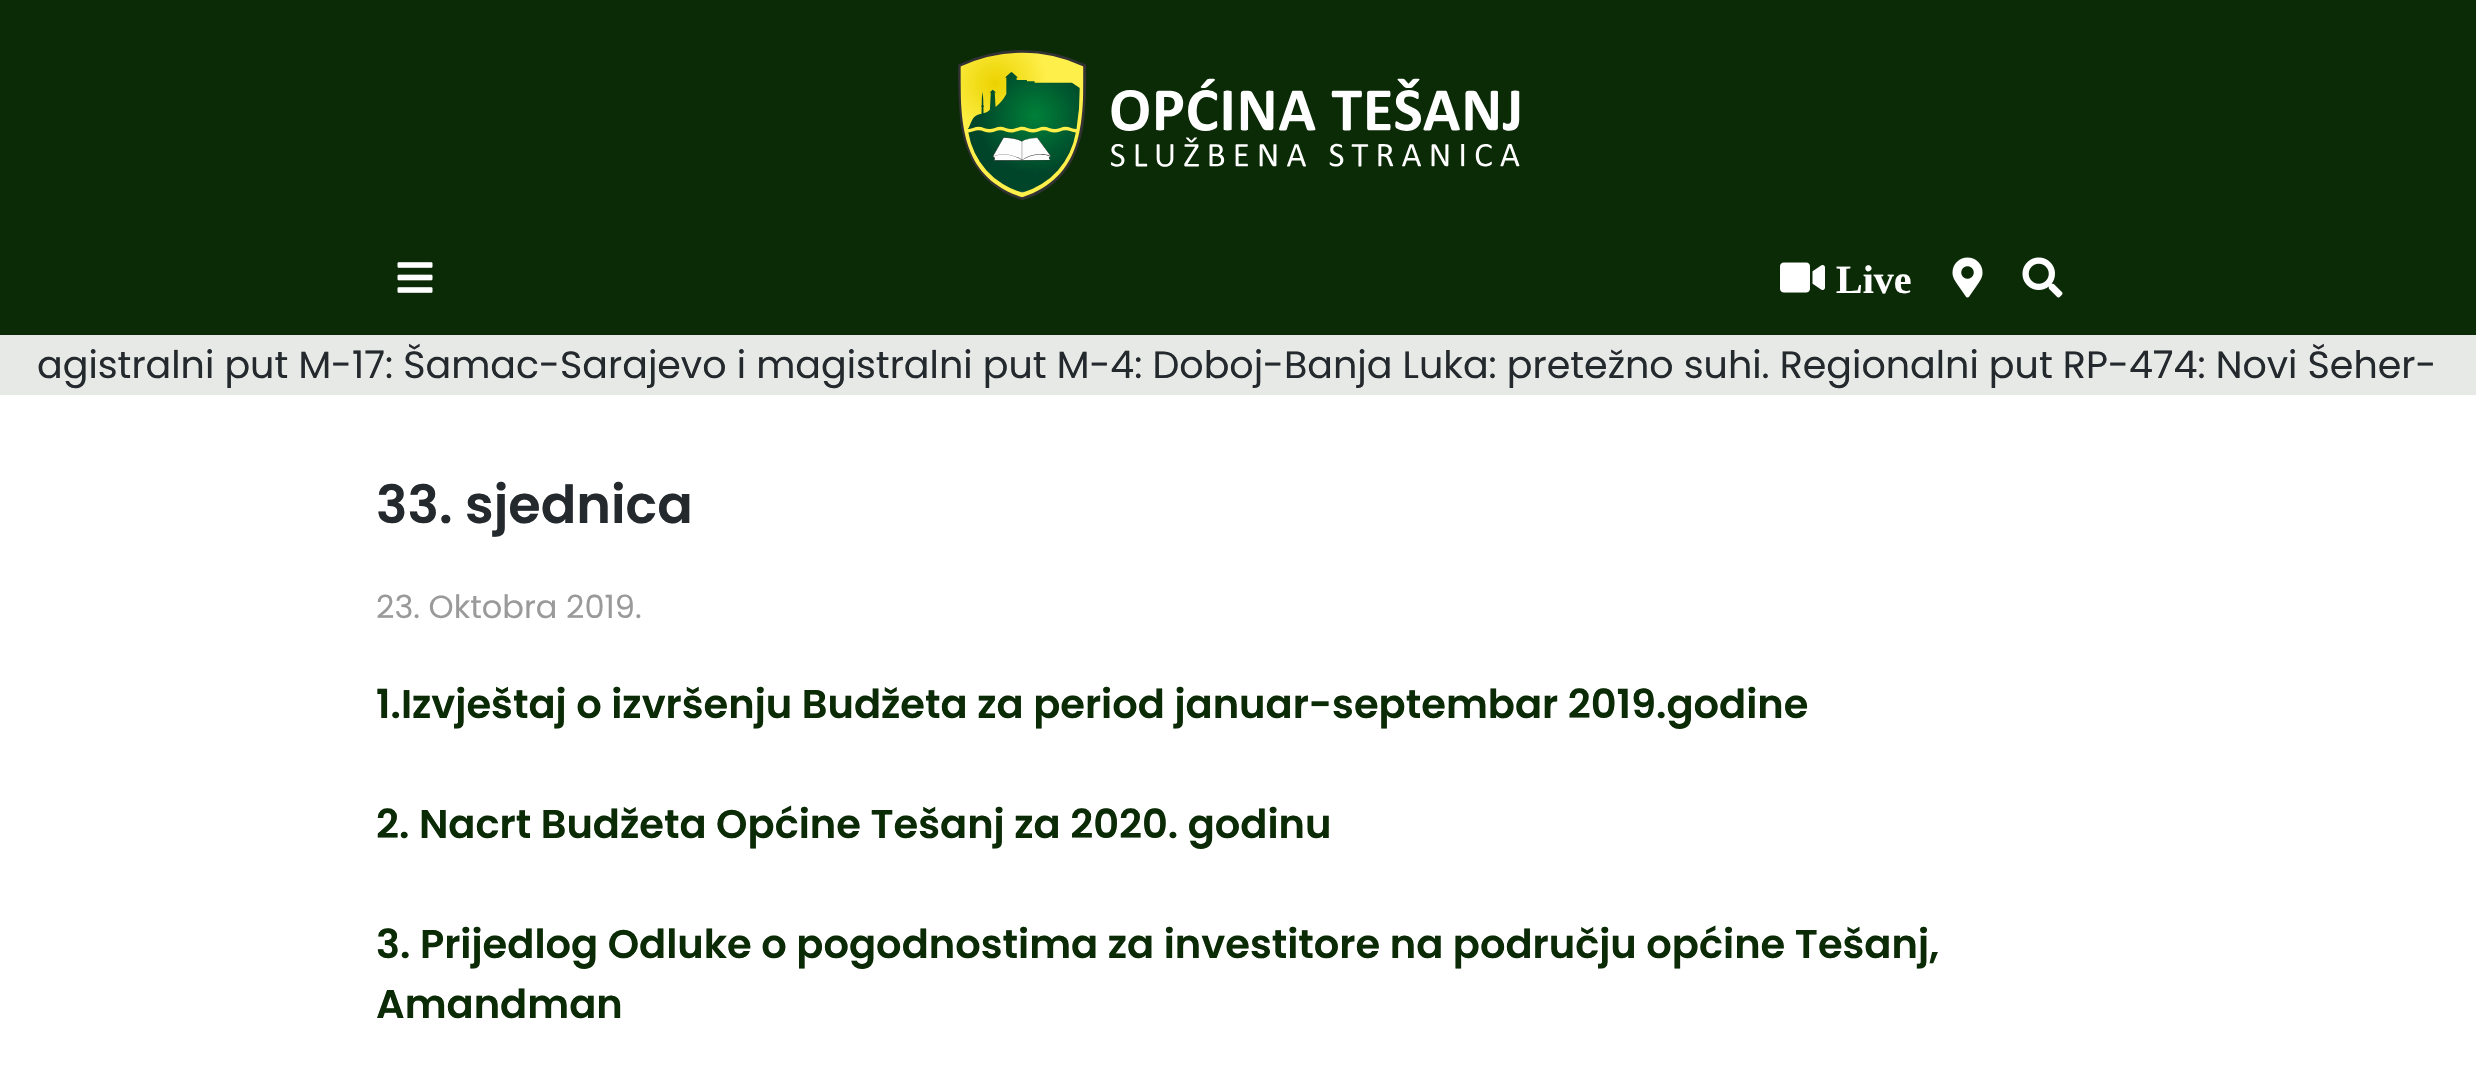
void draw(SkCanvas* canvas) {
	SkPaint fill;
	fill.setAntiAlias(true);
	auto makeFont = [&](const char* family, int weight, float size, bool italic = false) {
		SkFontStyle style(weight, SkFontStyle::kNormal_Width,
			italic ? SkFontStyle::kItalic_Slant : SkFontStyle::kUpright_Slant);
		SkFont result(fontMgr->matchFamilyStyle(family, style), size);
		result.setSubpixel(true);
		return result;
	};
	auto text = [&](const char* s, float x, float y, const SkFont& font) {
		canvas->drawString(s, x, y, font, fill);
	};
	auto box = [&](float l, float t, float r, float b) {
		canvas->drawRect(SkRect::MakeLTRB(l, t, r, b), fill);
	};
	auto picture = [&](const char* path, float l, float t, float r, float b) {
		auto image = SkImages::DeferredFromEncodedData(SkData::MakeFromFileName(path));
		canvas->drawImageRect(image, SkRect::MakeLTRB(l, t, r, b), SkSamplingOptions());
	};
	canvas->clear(0xFFFFFFFF);
	fill.setColor(0xFF0B2A06);
	box(0, 0, 2476, 335);
	picture("image0.png", 958, 50, 1520, 200);
	picture("image1.png", 397, 262, 433, 293);
	picture("image2.png", 1780, 262, 1825, 293);
	picture("image3.png", 1952, 257, 1983, 298);
	picture("image4.png", 2022, 257, 2063, 298);
	fill.setColor(0xFFE6E9E5);
	box(0, 335, 2476, 395);
	auto font1 = makeFont("Liberation Serif", 700, 40);
	fill.setColor(0xFFFFFFFF);
	text("Live", 1836, 293, font1);
	auto font2 = makeFont("Poppins", 400, 38);
	fill.setColor(0xFF24292E);
	text("agistralni put M-17: Šamac-Sarajevo i magistralni put M-4: Doboj-Banja Luka: pretežno suhi. Regionalni put RP-474: Novi Šeher-", 37, 378, font2);
	auto font3 = makeFont("Poppins", 600, 52.5f);
	text("33. sjednica", 376, 523, font3);
	auto font4 = makeFont("Poppins", 400, 32);
	fill.setColor(0xFF9A9A9A);
	text("23. Oktobra 2019.", 376, 618, font4);
	auto font5 = makeFont("Poppins", 600, 40);
	fill.setColor(0xFF0B2A06);
	text("1.Izvještaj o izvršenju Budžeta za period januar-septembar 2019.godine", 376, 718, font5);
	text("2. Nacrt Budžeta Općine Tešanj za 2020. godinu", 376, 838, font5);
	text("3. Prijedlog Odluke o pogodnostima za investitore na području općine Tešanj,", 376, 958, font5);
	text("Amandman", 376, 1018, font5);
}
